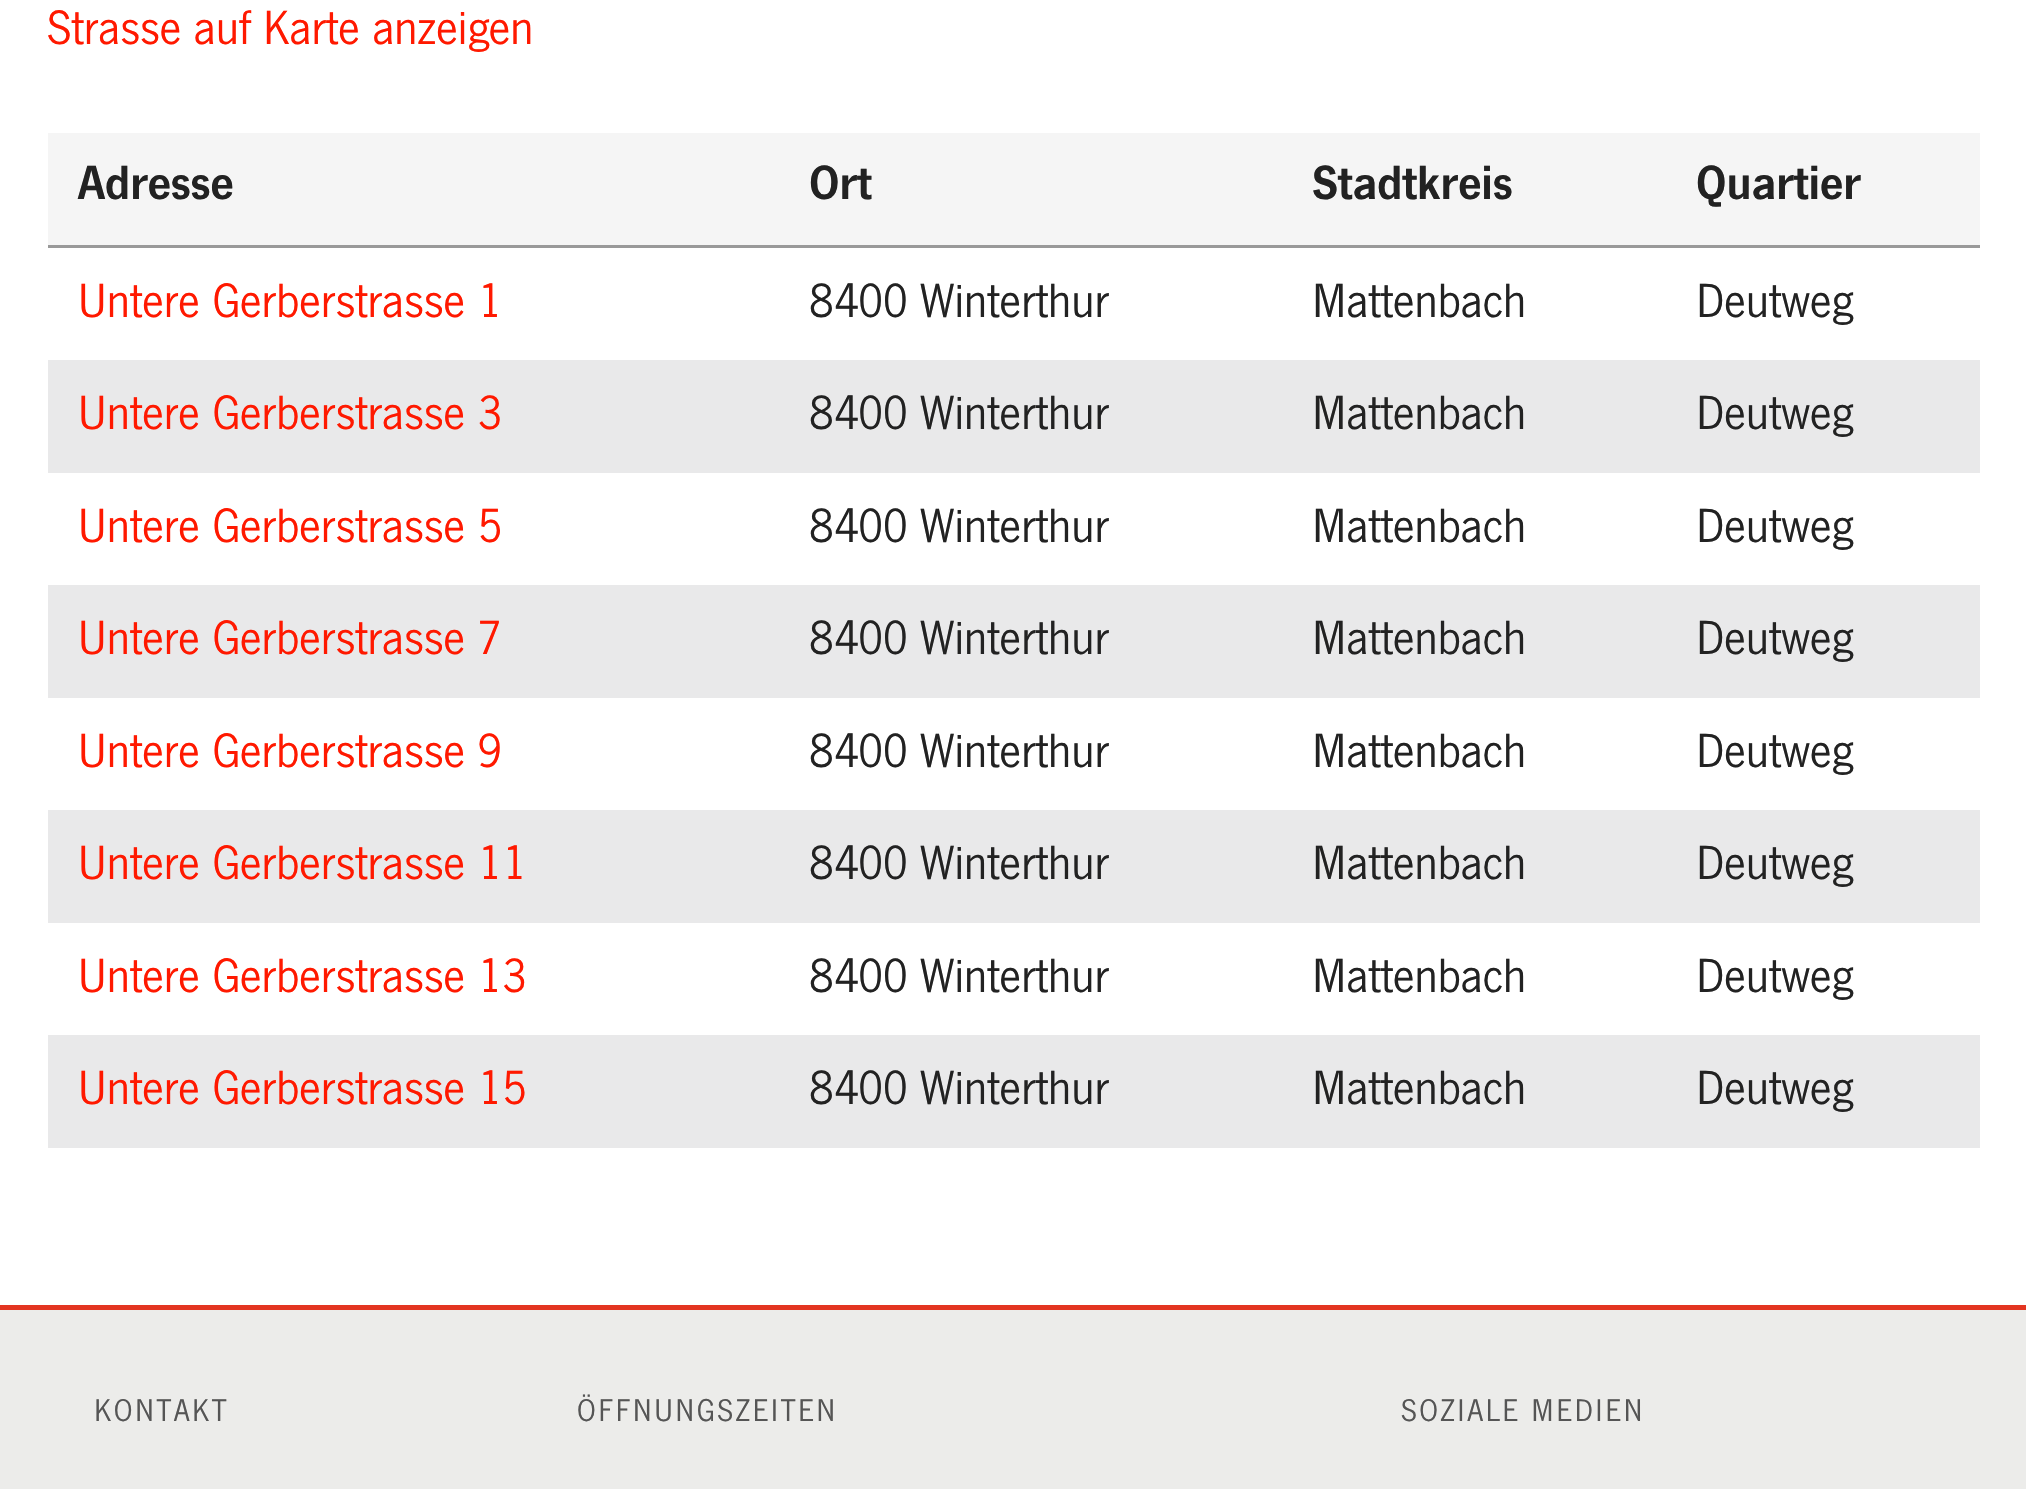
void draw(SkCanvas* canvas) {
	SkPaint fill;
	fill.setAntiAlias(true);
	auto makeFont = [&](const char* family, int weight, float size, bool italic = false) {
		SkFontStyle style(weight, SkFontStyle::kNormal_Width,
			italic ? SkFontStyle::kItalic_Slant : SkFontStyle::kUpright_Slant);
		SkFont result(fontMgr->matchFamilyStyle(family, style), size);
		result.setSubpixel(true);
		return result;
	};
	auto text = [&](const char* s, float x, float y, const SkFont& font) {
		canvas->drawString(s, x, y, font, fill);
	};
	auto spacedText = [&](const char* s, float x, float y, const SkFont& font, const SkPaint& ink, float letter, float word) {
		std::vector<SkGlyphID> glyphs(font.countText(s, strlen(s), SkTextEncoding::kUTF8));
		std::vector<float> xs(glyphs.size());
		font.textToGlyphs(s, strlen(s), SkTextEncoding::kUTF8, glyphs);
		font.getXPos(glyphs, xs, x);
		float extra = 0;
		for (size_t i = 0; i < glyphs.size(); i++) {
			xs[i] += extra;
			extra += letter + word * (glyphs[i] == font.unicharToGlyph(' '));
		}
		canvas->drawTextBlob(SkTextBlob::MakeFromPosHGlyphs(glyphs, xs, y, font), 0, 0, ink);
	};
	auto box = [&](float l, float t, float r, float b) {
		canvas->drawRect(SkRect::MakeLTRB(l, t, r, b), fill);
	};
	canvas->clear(0xFFFFFFFF);
	fill.setColor(0xFFF5F5F5);
	box(48, 133, 1980, 245);
	fill.setColor(0xFF999999);
	box(48, 245, 1980, 248);
	fill.setColor(0xFFE9E9EA);
	box(48, 360, 1980, 473);
	box(48, 585, 1980, 698);
	box(48, 810, 1980, 923);
	box(48, 1035, 1980, 1148);
	fill.setColor(0xFFE33521);
	canvas->drawPath(SkPathBuilder().moveTo(0, 1305).lineTo(0, 1310).lineTo(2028, 1310).lineTo(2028, 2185).lineTo(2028, 1305).close().detach(), fill);
	fill.setColor(0xFFECECEA);
	box(0, 1310, 2026, 1489);
	auto font1 = makeFont("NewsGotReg", 400, 50);
	fill.setColor(0xFFFF1900);
	text("Strasse auf Karte anzeigen", 47, 44, font1);
	auto font2 = makeFont("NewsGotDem", 400, 50);
	fill.setColor(0xFF222222);
	text("Adresse", 78, 199, font2);
	text("Ort", 809, 199, font2);
	text("Stadtkreis", 1312, 199, font2);
	text("Quartier", 1696, 199, font2);
	fill.setColor(0xFFFF1900);
	text("Untere Gerberstrasse 1", 78, 317, font1);
	fill.setColor(0xFF222222);
	text("8400 Winterthur", 809, 317, font1);
	text("Mattenbach", 1312, 317, font1);
	text("Deutweg", 1696, 317, font1);
	fill.setColor(0xFFFF1900);
	text("Untere Gerberstrasse 3", 78, 429, font1);
	fill.setColor(0xFF222222);
	text("8400 Winterthur", 809, 429, font1);
	text("Mattenbach", 1312, 429, font1);
	text("Deutweg", 1696, 429, font1);
	fill.setColor(0xFFFF1900);
	text("Untere Gerberstrasse 5", 78, 542, font1);
	fill.setColor(0xFF222222);
	text("8400 Winterthur", 809, 542, font1);
	text("Mattenbach", 1312, 542, font1);
	text("Deutweg", 1696, 542, font1);
	fill.setColor(0xFFFF1900);
	text("Untere Gerberstrasse 7", 78, 654, font1);
	fill.setColor(0xFF222222);
	text("8400 Winterthur", 809, 654, font1);
	text("Mattenbach", 1312, 654, font1);
	text("Deutweg", 1696, 654, font1);
	fill.setColor(0xFFFF1900);
	text("Untere Gerberstrasse 9", 78, 767, font1);
	fill.setColor(0xFF222222);
	text("8400 Winterthur", 809, 767, font1);
	text("Mattenbach", 1312, 767, font1);
	text("Deutweg", 1696, 767, font1);
	fill.setColor(0xFFFF1900);
	text("Untere Gerberstrasse 11", 78, 879, font1);
	fill.setColor(0xFF222222);
	text("8400 Winterthur", 809, 879, font1);
	text("Mattenbach", 1312, 879, font1);
	text("Deutweg", 1696, 879, font1);
	fill.setColor(0xFFFF1900);
	text("Untere Gerberstrasse 13", 78, 992, font1);
	fill.setColor(0xFF222222);
	text("8400 Winterthur", 809, 992, font1);
	text("Mattenbach", 1312, 992, font1);
	text("Deutweg", 1696, 992, font1);
	fill.setColor(0xFFFF1900);
	text("Untere Gerberstrasse 15", 78, 1104, font1);
	fill.setColor(0xFF222222);
	text("8400 Winterthur", 809, 1104, font1);
	text("Mattenbach", 1312, 1104, font1);
	text("Deutweg", 1696, 1104, font1);
	auto font3 = makeFont("NewsGotReg", 400, 32.5f);
	fill.setColor(0xFF555555);
	spacedText("KONTAKT", 94, 1421, font3, fill, 2.5f, 0);
	spacedText("ÖFFNUNGSZEITEN", 577, 1421, font3, fill, 2.5f, 0);
	spacedText("SOZIALE MEDIEN", 1401, 1421, font3, fill, 2.5f, 0);
}
